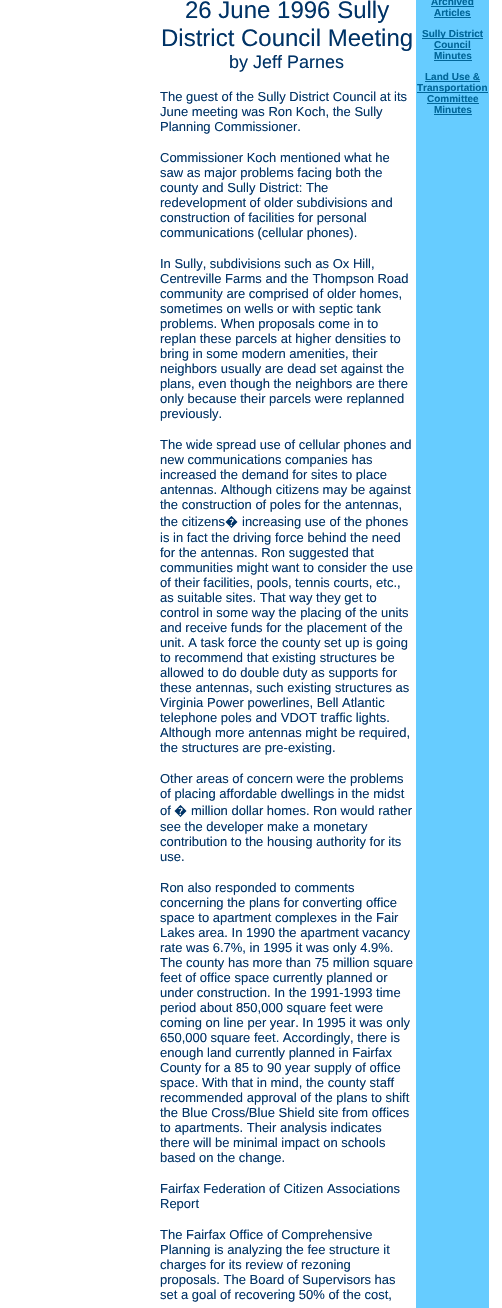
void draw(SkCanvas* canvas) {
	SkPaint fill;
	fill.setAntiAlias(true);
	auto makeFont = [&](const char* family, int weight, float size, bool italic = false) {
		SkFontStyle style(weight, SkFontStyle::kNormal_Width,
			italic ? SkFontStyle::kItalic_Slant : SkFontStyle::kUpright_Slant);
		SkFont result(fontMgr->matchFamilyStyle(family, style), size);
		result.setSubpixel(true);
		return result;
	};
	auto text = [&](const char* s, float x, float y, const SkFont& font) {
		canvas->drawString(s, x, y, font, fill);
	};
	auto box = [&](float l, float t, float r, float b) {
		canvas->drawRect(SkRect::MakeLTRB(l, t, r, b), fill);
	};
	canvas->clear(0xFFFFFFFF);
	fill.setColor(0xFF66CCFF);
	box(416, 0, 489, 1308);
	fill.setColor(0xFF006699);
	box(431, 6, 474, 7);
	box(434, 17, 471, 18);
	box(422, 38, 483, 39);
	box(434, 49, 471, 50);
	box(434, 60, 472, 61);
	box(425, 81, 480, 82);
	box(417, 92, 488, 93);
	box(427, 103, 479, 104);
	box(434, 114, 472, 115);
	auto font1 = makeFont("Liberation Sans", 400, 24);
	fill.setColor(0xFF003366);
	text("26 June 1996 Sully", 185, 18, font1);
	text("District Council Meeting", 161, 46, font1);
	auto font2 = makeFont("Liberation Sans", 400, 18);
	text("by Jeff Parnes", 229, 68, font2);
	auto font3 = makeFont("Liberation Sans", 400, 13);
	text("The guest of the Sully District Council at its", 160, 101, font3);
	text("June meeting was Ron Koch, the Sully", 160, 116, font3);
	text("Planning Commissioner.", 160, 131, font3);
	text("Commissioner Koch mentioned what he", 160, 162, font3);
	text("saw as major problems facing both the", 160, 177, font3);
	text("county and Sully District: The", 160, 192, font3);
	text("redevelopment of older subdivisions and", 160, 207, font3);
	text("construction of facilities for personal", 160, 222, font3);
	text("communications (cellular phones).", 160, 237, font3);
	text("In Sully, subdivisions such as Ox Hill,", 160, 268, font3);
	text("Centreville Farms and the Thompson Road", 160, 283, font3);
	text("community are comprised of older homes,", 160, 298, font3);
	text("sometimes on wells or with septic tank", 160, 313, font3);
	text("problems. When proposals come in to", 160, 328, font3);
	text("replan these parcels at higher densities to", 160, 343, font3);
	text("bring in some modern amenities, their", 160, 358, font3);
	text("neighbors usually are dead set against the", 160, 373, font3);
	text("plans, even though the neighbors are there", 160, 388, font3);
	text("only because their parcels were replanned", 160, 403, font3);
	text("previously.", 160, 418, font3);
	text("The wide spread use of cellular phones and", 160, 449, font3);
	text("new communications companies has", 160, 464, font3);
	text("increased the demand for sites to place", 160, 479, font3);
	text("antennas. Although citizens may be against", 160, 494, font3);
	text("the construction of poles for the antennas,", 160, 509, font3);
	text("the citizens", 160, 526, font3);
	auto font4 = makeFont("Noto Sans", 400, 13);
	text("�", 225, 526, font4);
	text("increasing use of the phones", 242, 526, font3);
	text("is in fact the driving force behind the need", 160, 542, font3);
	text("for the antennas. Ron suggested that", 160, 557, font3);
	text("communities might want to consider the use", 160, 572, font3);
	text("of their facilities, pools, tennis courts, etc.,", 160, 587, font3);
	text("as suitable sites. That way they get to", 160, 602, font3);
	text("control in some way the placing of the units", 160, 617, font3);
	text("and receive funds for the placement of the", 160, 632, font3);
	text("unit. A task force the county set up is going", 160, 647, font3);
	text("to recommend that existing structures be", 160, 662, font3);
	text("allowed to do double duty as supports for", 160, 677, font3);
	text("these antennas, such existing structures as", 160, 692, font3);
	text("Virginia Power powerlines, Bell Atlantic", 160, 707, font3);
	text("telephone poles and VDOT traffic lights.", 160, 722, font3);
	text("Although more antennas might be required,", 160, 737, font3);
	text("the structures are pre-existing.", 160, 752, font3);
	text("Other areas of concern were the problems", 160, 783, font3);
	text("of placing affordable dwellings in the midst", 160, 798, font3);
	text("of", 160, 815, font3);
	text("�", 174, 815, font4);
	text("million dollar homes. Ron would rather", 191, 815, font3);
	text("see the developer make a monetary", 160, 831, font3);
	text("contribution to the housing authority for its", 160, 846, font3);
	text("use.", 160, 861, font3);
	text("Ron also responded to comments", 160, 892, font3);
	text("concerning the plans for converting office", 160, 907, font3);
	text("space to apartment complexes in the Fair", 160, 922, font3);
	text("Lakes area. In 1990 the apartment vacancy", 160, 937, font3);
	text("rate was 6.7%, in 1995 it was only 4.9%.", 160, 952, font3);
	text("The county has more than 75 million square", 160, 967, font3);
	text("feet of office space currently planned or", 160, 982, font3);
	text("under construction. In the 1991-1993 time", 160, 997, font3);
	text("period about 850,000 square feet were", 160, 1012, font3);
	text("coming on line per year. In 1995 it was only", 160, 1027, font3);
	text("650,000 square feet. Accordingly, there is", 160, 1042, font3);
	text("enough land currently planned in Fairfax", 160, 1057, font3);
	text("County for a 85 to 90 year supply of office", 160, 1072, font3);
	text("space. With that in mind, the county staff", 160, 1087, font3);
	text("recommended approval of the plans to shift", 160, 1102, font3);
	text("the Blue Cross/Blue Shield site from offices", 160, 1117, font3);
	text("to apartments. Their analysis indicates", 160, 1132, font3);
	text("there will be minimal impact on schools", 160, 1147, font3);
	text("based on the change.", 160, 1162, font3);
	text("Fairfax Federation of Citizen Associations", 160, 1193, font3);
	text("Report", 160, 1208, font3);
	text("The Fairfax Office of Comprehensive", 160, 1239, font3);
	text("Planning is analyzing the fee structure it", 160, 1254, font3);
	text("charges for its review of rezoning", 160, 1269, font3);
	text("proposals. The Board of Supervisors has", 160, 1284, font3);
	text("set a goal of recovering 50% of the cost,", 160, 1299, font3);
	auto font5 = makeFont("Liberation Sans", 700, 10);
	fill.setColor(0xFF006699);
	text("Archived", 431, 5, font5);
	text("Articles", 434, 16, font5);
	text("Sully District", 422, 37, font5);
	text("Council", 434, 48, font5);
	text("Minutes", 434, 59, font5);
	text("Land Use &", 425, 80, font5);
	text("Transportation", 417, 91, font5);
	text("Committee", 427, 102, font5);
	text("Minutes", 434, 113, font5);
}
